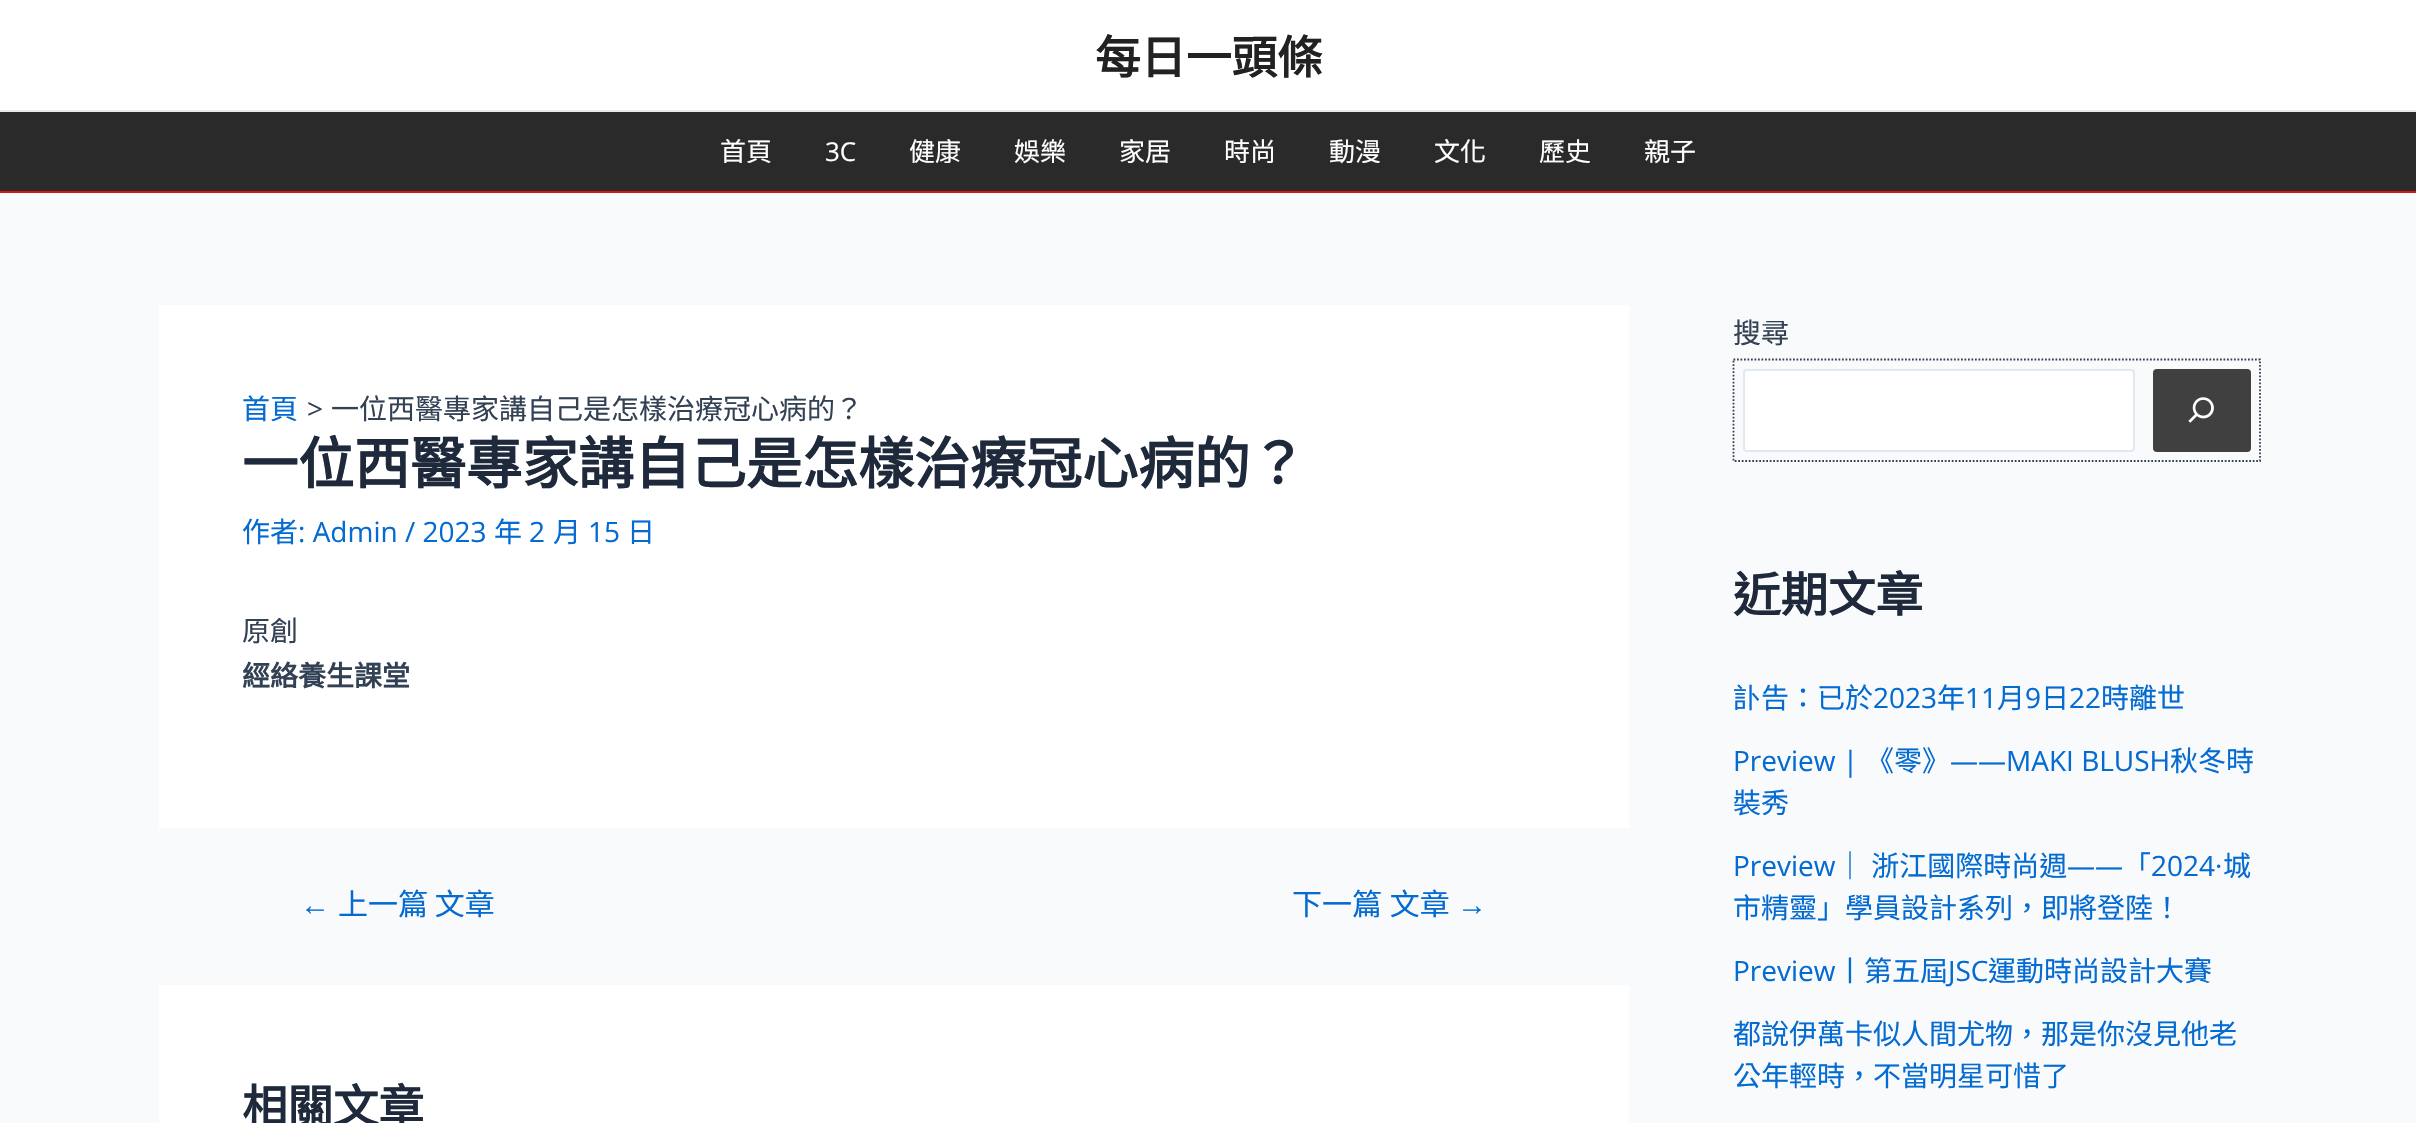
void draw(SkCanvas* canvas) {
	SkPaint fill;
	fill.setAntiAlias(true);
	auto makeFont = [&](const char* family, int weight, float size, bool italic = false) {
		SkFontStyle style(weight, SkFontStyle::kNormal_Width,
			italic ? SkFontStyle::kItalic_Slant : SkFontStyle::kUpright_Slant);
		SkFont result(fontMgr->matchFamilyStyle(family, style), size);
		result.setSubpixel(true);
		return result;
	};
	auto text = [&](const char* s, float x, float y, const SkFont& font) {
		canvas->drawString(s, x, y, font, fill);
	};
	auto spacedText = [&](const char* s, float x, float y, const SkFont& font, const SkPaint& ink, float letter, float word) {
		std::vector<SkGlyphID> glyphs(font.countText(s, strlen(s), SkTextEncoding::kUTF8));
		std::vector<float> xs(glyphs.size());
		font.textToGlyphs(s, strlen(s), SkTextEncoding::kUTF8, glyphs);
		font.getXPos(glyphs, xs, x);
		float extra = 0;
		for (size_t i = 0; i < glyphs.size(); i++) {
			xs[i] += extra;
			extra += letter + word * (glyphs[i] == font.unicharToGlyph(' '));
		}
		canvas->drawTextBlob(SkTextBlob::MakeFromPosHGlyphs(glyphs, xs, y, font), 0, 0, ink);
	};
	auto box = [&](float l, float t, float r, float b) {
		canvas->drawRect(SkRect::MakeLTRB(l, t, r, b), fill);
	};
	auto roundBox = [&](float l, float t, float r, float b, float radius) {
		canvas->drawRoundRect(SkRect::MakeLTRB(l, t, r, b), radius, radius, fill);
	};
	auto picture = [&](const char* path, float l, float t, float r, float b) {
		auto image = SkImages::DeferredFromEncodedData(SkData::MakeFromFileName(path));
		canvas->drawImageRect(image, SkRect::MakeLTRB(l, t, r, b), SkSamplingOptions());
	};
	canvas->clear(0xFFF9FAFB);
	fill.setColor(0xFFFFFFFF);
	box(0, 0, 2416, 110);
	fill.setColor(0xFFEAEAEA);
	box(0, 110, 2416, 112);
	fill.setColor(0xFF2A2A2A);
	box(0, 112, 2416, 191);
	fill.setColor(0xFFD91313);
	box(0, 191, 2416, 193);
	fill.setColor(0xFFFFFFFF);
	box(159, 305, 1629, 828);
	box(159, 985, 1629, 1123);
	canvas->drawRoundRect(SkRect::MakeLTRB(1744, 370, 2134, 451), 3, 3, fill);
	fill.setStyle(SkPaint::kStroke_Style);
	fill.setStrokeWidth(2);
	fill.setColor(0xFFE2E8F0);
	canvas->drawRoundRect(SkRect::MakeLTRB(1744, 370, 2134, 451), 3, 3, fill);
	fill.setStyle(SkPaint::kFill_Style);
	fill.setColor(0xFF404040);
	roundBox(2153, 369, 2251, 452, 4);
	fill.setStyle(SkPaint::kStroke_Style);
	fill.setStrokeWidth(1.8f);
	fill.setColor(0xFF334155);
	fill.setPathEffect(SkDashPathEffect::Make({{1.75f, 1.75f}}, 0));
	canvas->drawPath(SkPathBuilder().moveTo(1733.5f, 359.5f).lineTo(2260, 359.5f).lineTo(2260, 461).lineTo(1733.5f, 461).close().detach(), fill);
	fill.setPathEffect(nullptr);
	picture("image0.png", 2188, 397, 2214, 423);
	auto font1 = makeFont("Noto Sans CJK TC", 700, 45.5f);
	fill.setStyle(SkPaint::kFill_Style);
	fill.setColor(0xFF222222);
	text("每日一頭條", 1095, 74, font1);
	auto font2 = makeFont("Noto Sans CJK TC", 400, 26);
	fill.setColor(0xFFFFFFFF);
	text("首頁", 720, 161, font2);
	auto font3 = makeFont("Open Sans", 400, 26);
	text("3C", 825, 161, font3);
	text("健康", 909, 161, font2);
	text("娛樂", 1014, 161, font2);
	text("家居", 1119, 161, font2);
	text("時尚", 1224, 161, font2);
	text("動漫", 1329, 161, font2);
	text("文化", 1434, 161, font2);
	text("歷史", 1539, 161, font2);
	text("親子", 1644, 161, font2);
	auto font4 = makeFont("Noto Sans CJK TC", 400, 28);
	fill.setColor(0xFF046BD2);
	text("首頁", 242, 419, font4);
	auto font5 = makeFont("Open Sans", 400, 28);
	fill.setColor(0xFF334155);
	text(">", 307, 419, font5);
	text("一位西醫專家講自己是怎樣治療冠心病的？", 331, 419, font4);
	auto font6 = makeFont("Noto Sans CJK TC", 700, 56);
	fill.setColor(0xFF1E293B);
	text("一位西醫專家講自己是怎樣治療冠心病的？", 242, 484, font6);
	fill.setColor(0xFF046BD2);
	text("作者", 242, 542, font4);
	text(": Admin / 2023", 298, 542, font5);
	text("年", 494, 542, font4);
	text("2", 529, 542, font5);
	text("月", 553, 542, font4);
	text("15", 588, 542, font5);
	text("日", 627, 542, font4);
	fill.setColor(0xFF334155);
	text("原創", 242, 641, font4);
	auto font7 = makeFont("Noto Sans CJK TC", 700, 28);
	text("經絡養生課堂", 242, 686, font7);
	auto font8 = makeFont("Liberation Sans", 400, 30);
	fill.setColor(0xFF046BD2);
	text("←", 300, 915, font8);
	auto font9 = makeFont("Noto Sans CJK TC", 400, 30);
	text("上一篇 文章", 338, 915, font9);
	spacedText("下一篇 文章", 1292, 915, font9, fill, 0, 1);
	text("→", 1457, 915, font8);
	fill.setColor(0xFF1E293B);
	text("相關文章", 242, 1123, font1);
	fill.setColor(0xFF334155);
	text("搜尋", 1733, 343, font4);
	auto font10 = makeFont("Noto Sans CJK TC", 700, 47.5f);
	fill.setColor(0xFF1E293B);
	text("近期文章", 1733, 612, font10);
	fill.setColor(0xFF046BD2);
	text("訃告：已於", 1733, 708, font4);
	text("2023", 1873, 708, font5);
	text("年", 1937, 708, font4);
	text("11", 1965, 708, font5);
	text("月", 1997, 708, font4);
	text("9", 2025, 708, font5);
	text("日", 2041, 708, font4);
	text("22", 2069, 708, font5);
	text("時離世", 2101, 708, font4);
	text("Preview |", 1733, 771, font5);
	text("《零》", 1866, 771, font4);
	text("——MAKI BLUSH", 1950, 771, font5);
	text("秋冬時", 2170, 771, font4);
	text("裝秀", 1733, 813, font4);
	text("Preview", 1733, 876, font5);
	spacedText("｜ 浙江國際時尚週", 1836, 876, font4, fill, 0, 1);
	text("——", 2067, 876, font5);
	text("「", 2123, 876, font4);
	text("2024·", 2151, 876, font5);
	text("城", 2223, 876, font4);
	text("市精靈」學員設計系列，即將登陸！", 1733, 918, font4);
	text("Preview", 1733, 981, font5);
	text("丨第五屆", 1836, 981, font4);
	text("JSC", 1948, 981, font5);
	text("運動時尚設計大賽", 1988, 981, font4);
	text("都說伊萬卡似人間尤物，那是你沒見他老", 1733, 1044, font4);
	text("公年輕時，不當明星可惜了", 1733, 1086, font4);
}
